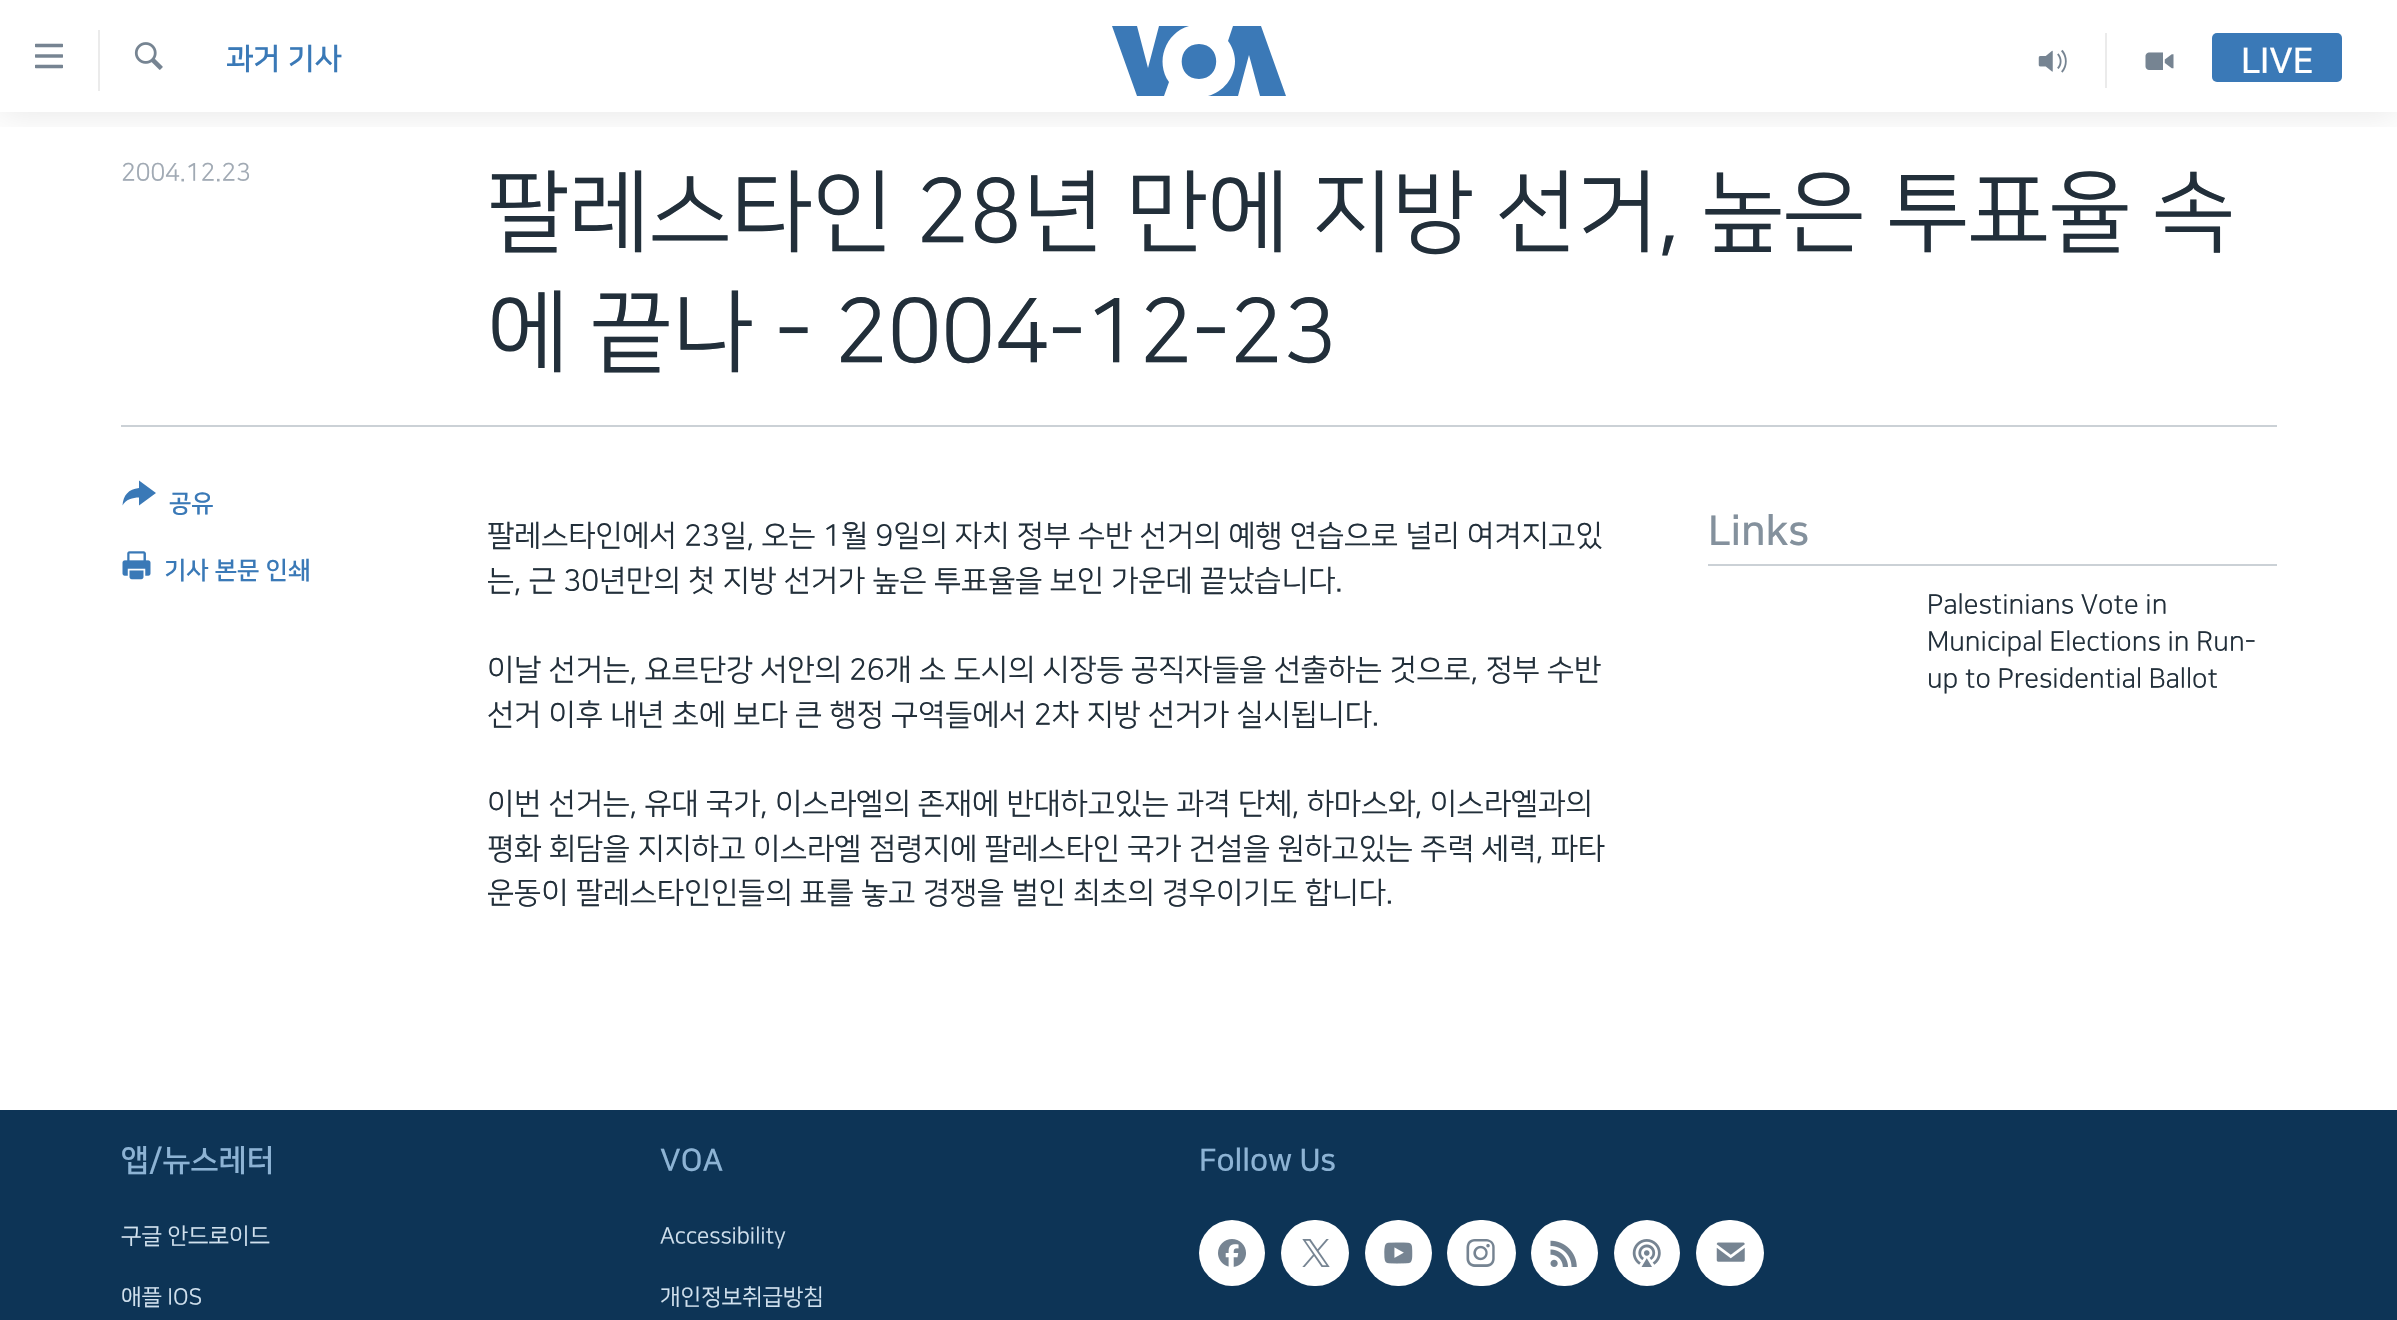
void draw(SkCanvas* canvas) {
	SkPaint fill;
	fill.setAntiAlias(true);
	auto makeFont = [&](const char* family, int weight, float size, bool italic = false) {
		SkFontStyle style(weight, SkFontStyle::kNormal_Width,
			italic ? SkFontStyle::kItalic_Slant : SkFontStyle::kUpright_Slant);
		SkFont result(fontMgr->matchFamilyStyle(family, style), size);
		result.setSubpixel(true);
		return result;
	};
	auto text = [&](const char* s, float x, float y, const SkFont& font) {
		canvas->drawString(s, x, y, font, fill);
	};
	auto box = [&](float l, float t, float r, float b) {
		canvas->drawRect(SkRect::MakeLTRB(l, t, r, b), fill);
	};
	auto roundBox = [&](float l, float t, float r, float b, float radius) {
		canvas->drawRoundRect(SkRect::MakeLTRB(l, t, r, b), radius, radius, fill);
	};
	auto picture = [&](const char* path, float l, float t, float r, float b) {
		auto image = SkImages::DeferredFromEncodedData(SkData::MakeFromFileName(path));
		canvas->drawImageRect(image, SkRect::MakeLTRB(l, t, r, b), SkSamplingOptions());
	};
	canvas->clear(0xFFFFFFFF);
	canvas->save();
	canvas->clipRect(SkRect::MakeLTRB(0, 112, 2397, 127));
	fill.setColor(0x1A000000);
	fill.setMaskFilter(SkMaskFilter::MakeBlur(kNormal_SkBlurStyle, 17.5f));
	canvas->drawRect(SkRect::MakeLTRB(0, 0, 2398, 112), fill);
	fill.setMaskFilter(nullptr);
	canvas->restore();
	picture("image0.png", 35, 43, 63, 69);
	fill.setColor(0xFFEBEBEB);
	box(98, 30, 100, 91);
	picture("image1.png", 134, 42, 163, 70);
	fill.setColor(0xFF3B79B7);
	canvas->drawPath(SkPathBuilder().moveTo(1169, 82).lineTo(1164, 96).lineTo(1137, 96).lineTo(1112, 26).lineTo(1137, 26).lineTo(1148, 68).lineTo(1159, 26).lineTo(1189, 26).cubicTo(1165, 33, 1155, 62, 1169, 82).close().moveTo(1199, 44).cubicTo(1176, 44, 1176, 79, 1199, 79).cubicTo(1222, 79, 1222, 44, 1199, 44).close().moveTo(1235, 61).cubicTo(1235, 78, 1223, 92, 1208, 96).lineTo(1238, 96).lineTo(1249, 55).lineTo(1260, 96).lineTo(1286, 96).lineTo(1261, 26).lineTo(1233, 26).lineTo(1228, 41).cubicTo(1232, 46, 1235, 54, 1235, 61).close().detach(), fill);
	fill.setColor(0xFFEBEBEB);
	box(2105, 33, 2107, 88);
	picture("image2.png", 2038, 49, 2067, 73);
	picture("image3.png", 2145, 52, 2174, 70);
	fill.setColor(0xFF3A79B7);
	roundBox(2212, 33, 2342, 82, 5);
	fill.setColor(0xFFCBD1D6);
	box(121, 425, 2277, 427);
	fill.setColor(0xFF3A79B7);
	canvas->drawPath(SkPathBuilder().moveTo(122.5f, 505.5f).cubicTo(123, 495.5f, 128.5f, 489, 139, 488).lineTo(139, 480.5f).lineTo(156, 493).lineTo(139, 505.5f).lineTo(139, 497.5f).cubicTo(133, 497.5f, 125.5f, 499.5f, 122.5f, 505.5f).close().detach(), fill);
	picture("image4.png", 122, 551, 151, 580);
	fill.setColor(0xFFCBD1D6);
	box(1708, 564, 2277, 566);
	fill.setColor(0xFF0D3456);
	box(0, 1110, 2397, 1320);
	fill.setColor(0xFFFFFFFF);
	canvas->drawCircle(1232, 1253, 33, fill);
	picture("image5.png", 1218, 1239, 1246, 1267);
	roundBox(1281, 1220, 1349, 1286, 33);
	picture("image6.png", 1302, 1239, 1330, 1267);
	roundBox(1365, 1220, 1432, 1286, 33);
	picture("image7.png", 1384, 1242, 1413, 1264);
	roundBox(1447, 1220, 1516, 1286, 33);
	picture("image8.png", 1466, 1239, 1495, 1267);
	roundBox(1531, 1220, 1598, 1286, 33);
	picture("image9.png", 1550, 1240, 1577, 1267);
	canvas->drawCircle(1647, 1253, 33, fill);
	picture("image10.png", 1632, 1239, 1661, 1267);
	roundBox(1696, 1220, 1764, 1286, 33);
	picture("image11.png", 1716, 1242, 1745, 1262);
	auto font1 = makeFont("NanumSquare", 700, 29.75f);
	fill.setColor(0xFF3A79B7);
	text("과거 기사", 226, 68, font1);
	auto font2 = makeFont("NanumSquare", 700, 35);
	fill.setColor(0xFFFFFFFF);
	text("LIVE", 2241, 72, font2);
	auto font3 = makeFont("NanumSquare", 400, 24.5f);
	fill.setColor(0xFFA1AAB4);
	text("2004.12.23", 121, 180, font3);
	auto font4 = makeFont("NanumSquare", 400, 89.25f);
	fill.setColor(0xFF222F3A);
	text("팔레스타인 28년 만에 지방 선거, 높은 투표율 속", 487, 240, font4);
	text("에 끝나 - 2004-12-23", 487, 360, font4);
	auto font5 = makeFont("NanumSquare", 700, 24.5f);
	fill.setColor(0xFF3A79B7);
	text("공유", 169, 511, font5);
	text("기사 본문 인쇄", 164, 578, font5);
	auto font6 = makeFont("NanumSquare", 400, 29.75f);
	fill.setColor(0xFF222F3A);
	text("팔레스타인에서 23일, 오는 1월 9일의 자치 정부 수반 선거의 예행 연습으로 널리 여겨지고있", 487, 545, font6);
	text("는, 근 30년만의 첫 지방 선거가 높은 투표율을 보인 가운데 끝났습니다.", 487, 590, font6);
	text("이날 선거는, 요르단강 서안의 26개 소 도시의 시장등 공직자들을 선출하는 것으로, 정부 수반", 487, 679, font6);
	text("선거 이후 내년 초에 보다 큰 행정 구역들에서 2차 지방 선거가 실시됩니다.", 487, 724, font6);
	text("이번 선거는, 유대 국가, 이스라엘의 존재에 반대하고있는 과격 단체, 하마스와, 이스라엘과의", 487, 813, font6);
	text("평화 회담을 지지하고 이스라엘 점령지에 팔레스타인 국가 건설을 원하고있는 주력 세력, 파타", 487, 858, font6);
	text("운동이 팔레스타인인들의 표를 놓고 경쟁을 벌인 최초의 경우이기도 합니다.", 487, 902, font6);
	auto font7 = makeFont("NanumSquare", 700, 41);
	fill.setColor(0xFF84919D);
	text("Links", 1708, 544, font7);
	auto font8 = makeFont("NanumSquare", 400, 27);
	fill.setColor(0xFF222F3A);
	text("Palestinians Vote in", 1927, 613, font8);
	text("Municipal Elections in Run-", 1927, 650, font8);
	text("up to Presidential Ballot", 1927, 687, font8);
	auto font9 = makeFont("NanumSquare", 700, 30.75f);
	fill.setColor(0xFF8DB3D4);
	text("앱/뉴스레터", 121, 1170, font9);
	auto font10 = makeFont("NanumSquare", 400, 22.5f);
	fill.setColor(0xFFD1E1EE);
	text("구글 안드로이드", 121, 1243, font10);
	text("애플 IOS", 121, 1304, font10);
	fill.setColor(0xFF8DB3D4);
	text("VOA", 660, 1170, font9);
	fill.setColor(0xFFD1E1EE);
	text("Accessibility", 660, 1243, font10);
	text("개인정보취급방침", 660, 1304, font10);
	fill.setColor(0xFF8DB3D4);
	text("Follow Us", 1199, 1170, font9);
}
